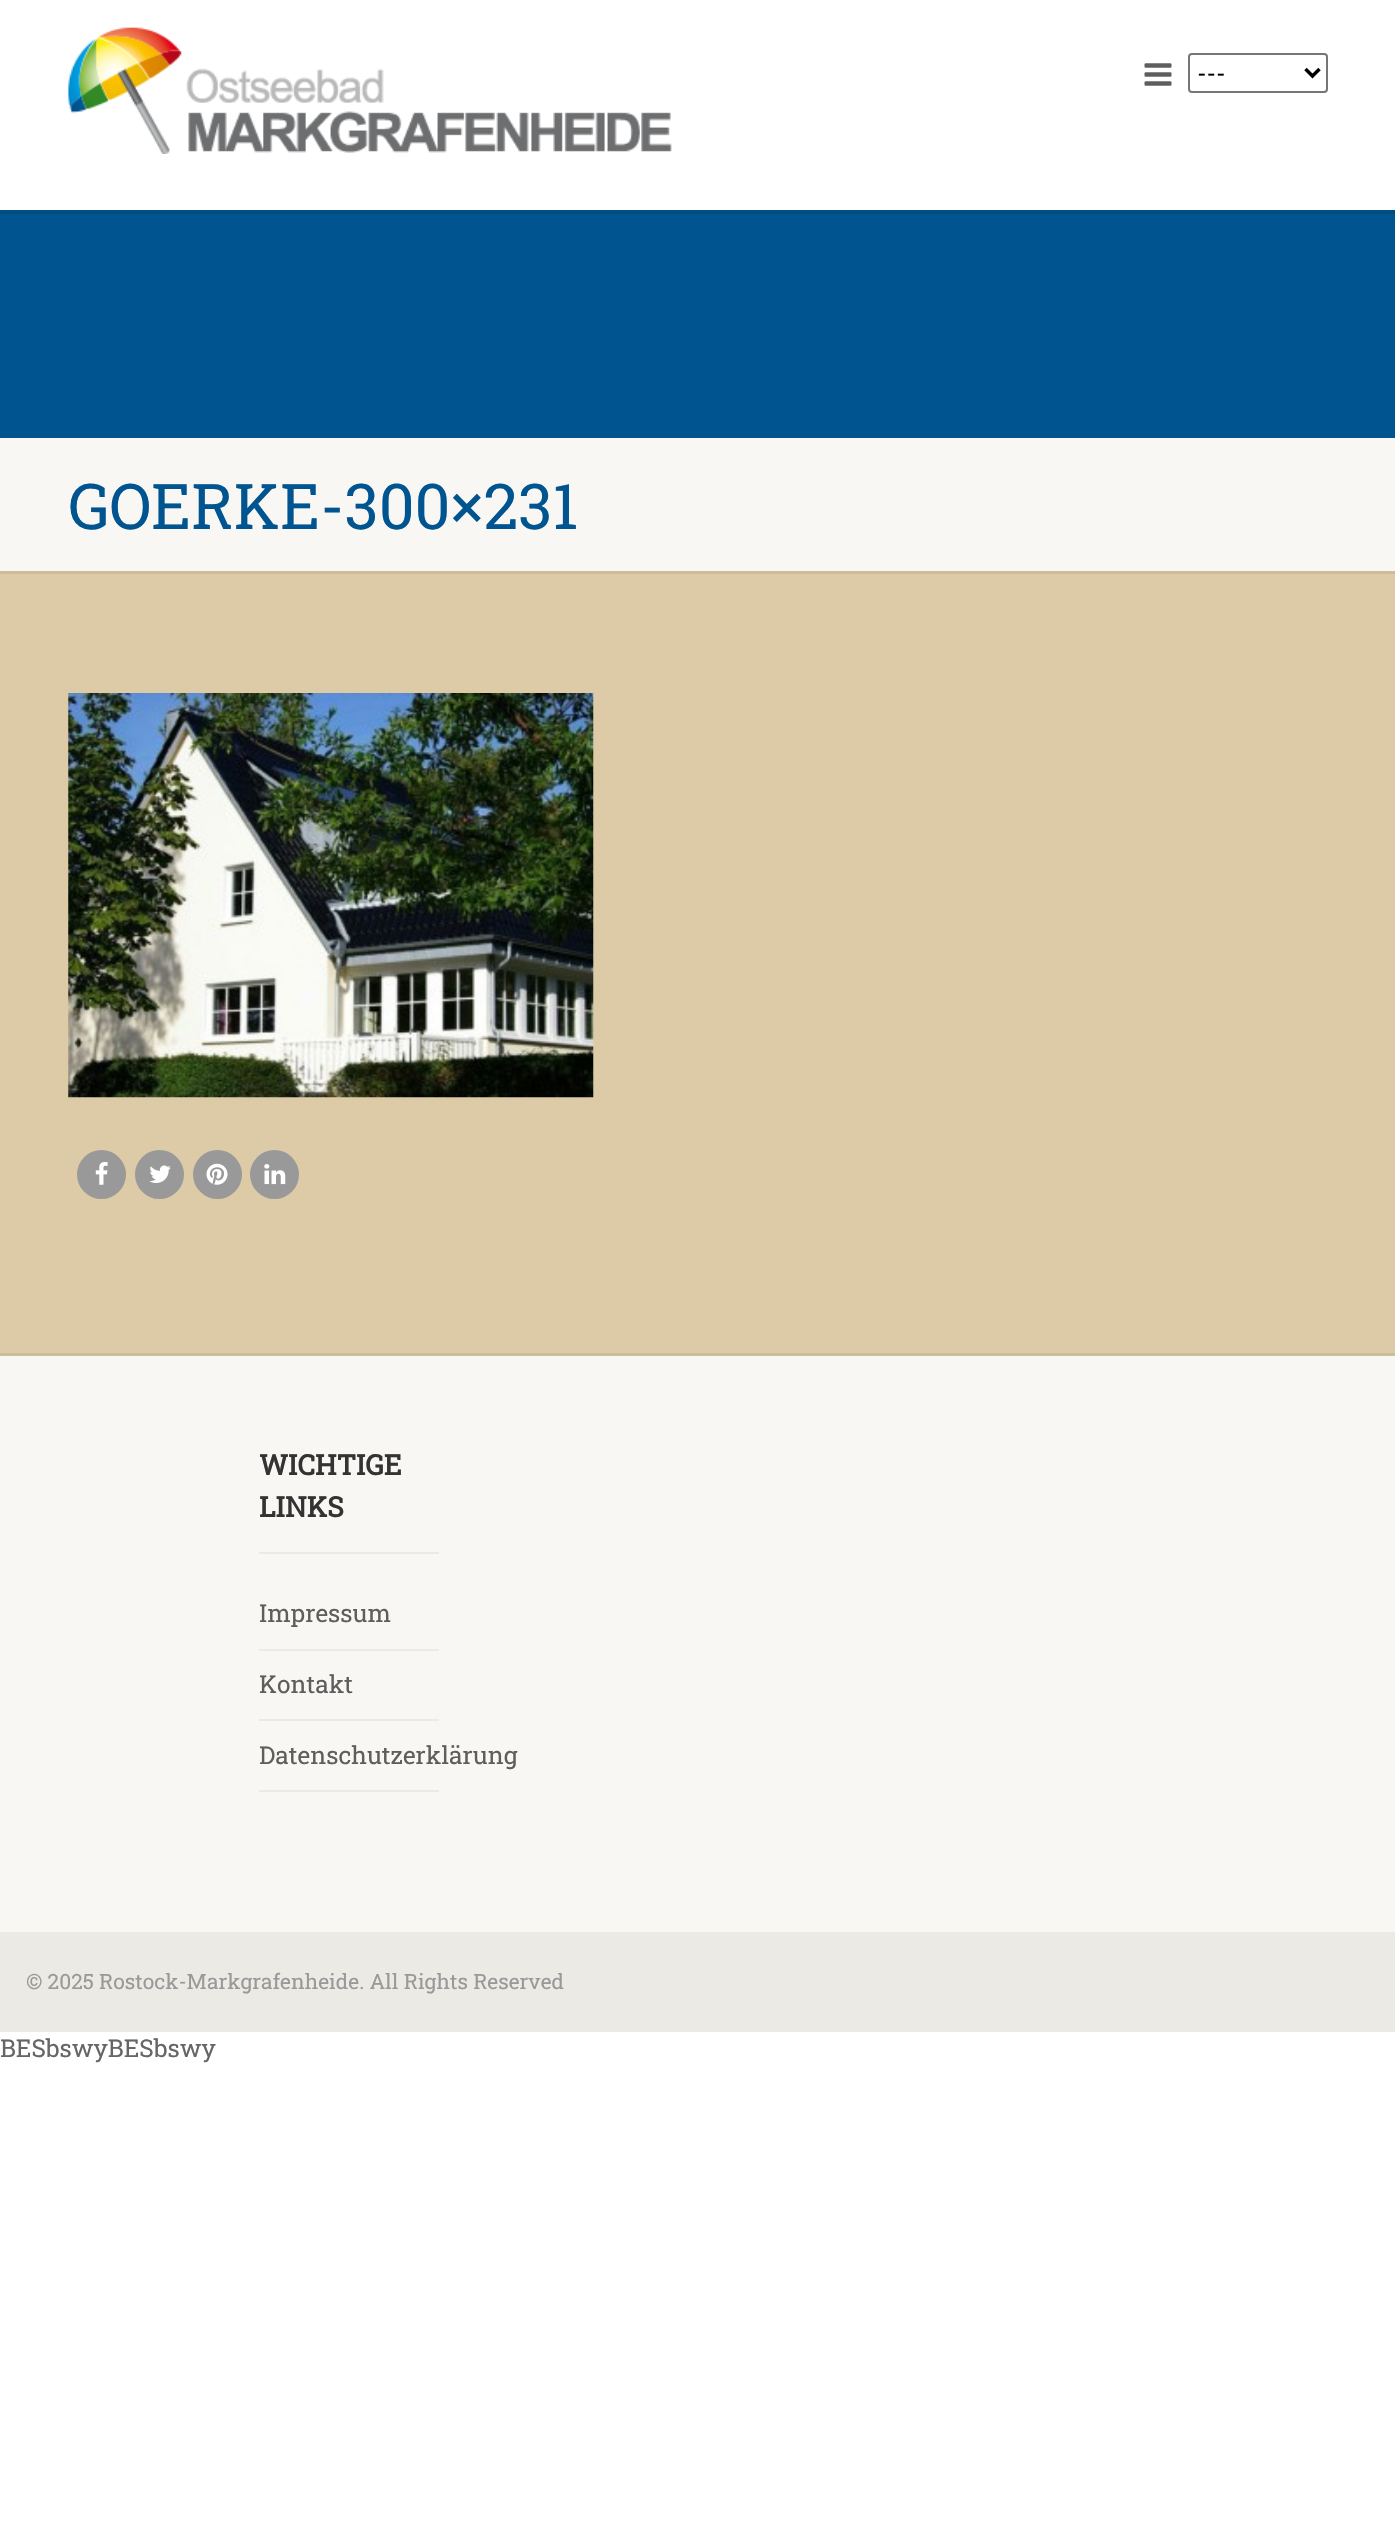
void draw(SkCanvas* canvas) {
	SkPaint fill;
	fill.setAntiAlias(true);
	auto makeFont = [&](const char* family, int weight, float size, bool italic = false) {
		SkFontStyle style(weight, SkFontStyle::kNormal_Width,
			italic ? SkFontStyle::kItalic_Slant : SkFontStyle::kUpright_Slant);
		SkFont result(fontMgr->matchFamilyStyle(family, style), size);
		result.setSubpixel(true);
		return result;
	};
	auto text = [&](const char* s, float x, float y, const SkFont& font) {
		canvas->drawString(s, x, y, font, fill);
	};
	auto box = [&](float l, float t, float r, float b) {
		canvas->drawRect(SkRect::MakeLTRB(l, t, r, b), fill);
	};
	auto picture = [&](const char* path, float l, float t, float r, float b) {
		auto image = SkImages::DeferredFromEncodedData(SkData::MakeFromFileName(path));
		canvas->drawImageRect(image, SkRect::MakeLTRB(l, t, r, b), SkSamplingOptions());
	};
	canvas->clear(0xFFFFFFFF);
	fill.setColor(0xFF004D83);
	canvas->drawPath(SkPathBuilder().moveTo(0, 210).lineTo(0, 214).lineTo(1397, 214).lineTo(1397, 4).lineTo(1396, 4).lineTo(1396, 210).close().detach(), fill);
	picture("image0.png", 68, 27, 672, 154);
	picture("image1.png", 1144, 63, 1172, 86);
	fill.setStyle(SkPaint::kStroke_Style);
	fill.setStrokeWidth(2);
	fill.setColor(0xFF767676);
	canvas->drawRoundRect(SkRect::MakeLTRB(1189, 54, 1327, 92), 3, 3, fill);
	fill.setStrokeWidth(3.5f);
	fill.setColor(0xFF000000);
	canvas->drawPath(SkPathBuilder().moveTo(1305.5f, 69).lineTo(1312.5f, 76).lineTo(1319.5f, 69).detach(), fill);
	fill.setStyle(SkPaint::kFill_Style);
	fill.setColor(0xFF005591);
	box(0, 214, 1395, 438);
	fill.setColor(0xFFDDCBA8);
	box(0, 571, 1395, 1353);
	fill.setColor(0x12000000);
	canvas->drawPath(SkPathBuilder().moveTo(0, 570).lineTo(0, 574).lineTo(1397, 574).lineTo(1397, 441).lineTo(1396, 441).lineTo(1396, 570).close().detach(), fill);
	fill.setColor(0xFFF8F7F3);
	box(0, 438, 1395, 571);
	picture("image2.png", 68, 693, 594, 1098);
	fill.setColor(0xFF999999);
	canvas->drawCircle(101.5f, 1174.5f, 24.5f, fill);
	picture("image3.png", 95, 1162, 108, 1185);
	canvas->drawCircle(159.5f, 1174.5f, 24.5f, fill);
	picture("image4.png", 149, 1165, 171, 1183);
	canvas->drawCircle(217.5f, 1174.5f, 24.5f, fill);
	picture("image5.png", 206, 1163, 228, 1185);
	canvas->drawCircle(274.5f, 1174.5f, 24.5f, fill);
	picture("image6.png", 264, 1164, 286, 1185);
	fill.setColor(0xFFCEBD9C);
	canvas->drawPath(SkPathBuilder().moveTo(0, 1353).lineTo(0, 1356).lineTo(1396, 1356).lineTo(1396, 1929).lineTo(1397, 1929).lineTo(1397, 1353).close().detach(), fill);
	fill.setColor(0xFFF8F7F3);
	box(0, 1356, 1395, 1932);
	fill.setColor(0xFFECEAE4);
	box(259, 1552, 439, 1554);
	box(259, 1649, 439, 1651);
	box(259, 1719, 439, 1721);
	box(259, 1790, 439, 1792);
	box(0, 1932, 1395, 2032);
	auto font1 = makeFont("Roboto Slab", 400, 24.5f);
	fill.setColor(0xFF000000);
	text("---", 1197, 82, font1);
	auto font2 = makeFont("Roboto Slab", 400, 63);
	fill.setColor(0xFF005591);
	text("GOERKE-300×231", 68, 529, font2);
	auto font3 = makeFont("Roboto Slab", 700, 28);
	fill.setColor(0xFF333333);
	text("WICHTIGE", 259, 1475, font3);
	text("LINKS", 259, 1517, font3);
	fill.setColor(0xFF5E5E5E);
	text("Impressum", 259, 1622, font1);
	text("Kontakt", 259, 1693, font1);
	text("Datenschutzerklärung", 259, 1764, font1);
	auto font4 = makeFont("Roboto Slab", 400, 21);
	fill.setColor(0xFF999999);
	text("© 2025 Rostock-Markgrafenheide. All Rights Reserved", 26, 1989, font4);
	fill.setColor(0xFF666666);
	text("BESbswyBESbswy", 0, 2057, font1);
}
